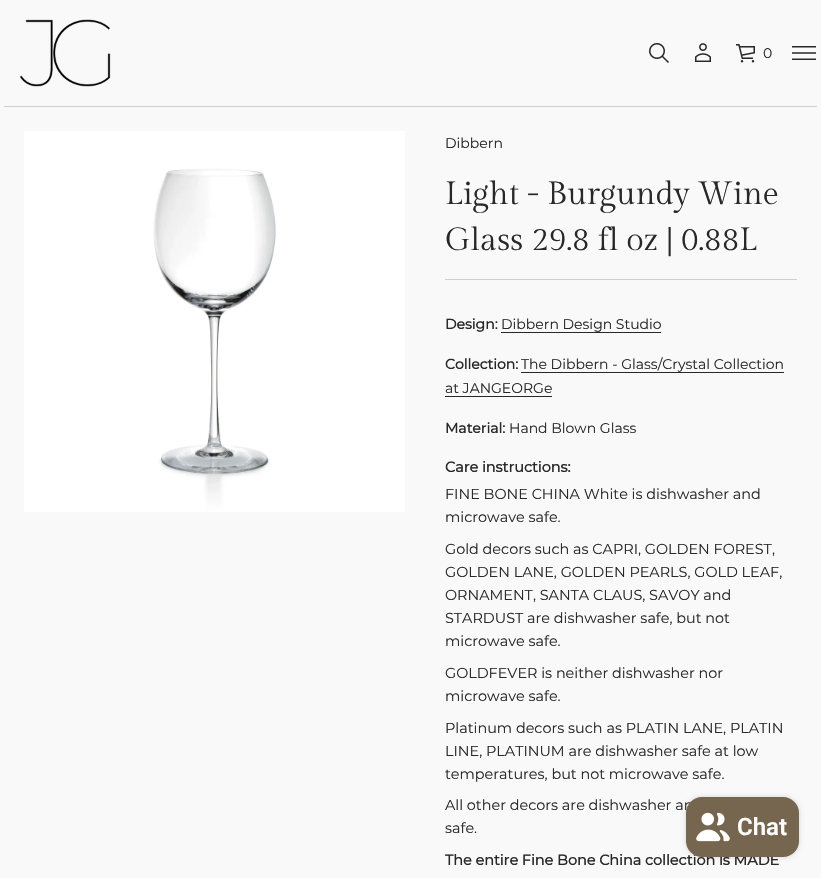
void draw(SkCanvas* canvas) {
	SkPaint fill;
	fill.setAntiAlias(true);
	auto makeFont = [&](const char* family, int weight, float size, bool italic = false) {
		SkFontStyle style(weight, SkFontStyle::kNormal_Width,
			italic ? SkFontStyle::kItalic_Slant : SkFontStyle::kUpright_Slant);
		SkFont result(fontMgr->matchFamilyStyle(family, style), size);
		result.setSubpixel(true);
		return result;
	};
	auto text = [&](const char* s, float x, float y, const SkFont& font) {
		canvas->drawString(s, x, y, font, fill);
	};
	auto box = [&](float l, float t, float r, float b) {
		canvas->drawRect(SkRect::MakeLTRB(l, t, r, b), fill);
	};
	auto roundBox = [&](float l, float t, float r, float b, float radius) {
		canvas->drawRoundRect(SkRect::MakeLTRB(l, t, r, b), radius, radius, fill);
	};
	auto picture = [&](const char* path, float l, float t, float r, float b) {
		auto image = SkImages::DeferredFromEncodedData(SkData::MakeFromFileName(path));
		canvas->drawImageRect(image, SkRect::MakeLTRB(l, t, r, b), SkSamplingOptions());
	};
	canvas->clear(0xFFF9F9F9);
	fill.setColor(0xFFCFCFCF);
	box(4, 106, 817, 107);
	picture("image0.png", 20, 19, 111, 87);
	picture("image1.png", 649, 43, 669, 63);
	picture("image2.png", 695, 43, 711, 62);
	picture("image3.png", 736, 44, 755, 63);
	picture("image4.png", 792, 46, 816, 60);
	picture("image5.png", 24, 131, 405, 512);
	box(445, 279, 797, 280);
	fill.setColor(0xFF282828);
	box(501, 332, 661, 333);
	box(521, 372, 784, 373);
	box(445, 396, 552, 397);
	fill.setColor(0x26000000);
	fill.setMaskFilter(SkMaskFilter::MakeBlur(kNormal_SkBlurStyle, 2.5f));
	canvas->drawRoundRect(SkRect::MakeLTRB(686, 797, 799, 857), 16, 16, fill);
	fill.setMaskFilter(nullptr);
	auto font1 = makeFont("Montserrat", 400, 14);
	fill.setColor(0xFF282828);
	text("0", 763, 58, font1);
	text("Dibbern", 445, 148, font1);
	auto font2 = makeFont("Gilda Display", 400, 32);
	text("Light - Burgundy Wine", 445, 204, font2);
	text("Glass 29.8 fl oz | 0.88L", 445, 250, font2);
	auto font3 = makeFont("Montserrat", 700, 14);
	text("Design:", 445, 329, font3);
	text("Dibbern Design Studio", 501, 329, font1);
	text("Collection:", 445, 369, font3);
	text("The Dibbern - Glass/Crystal Collection", 521, 369, font1);
	text("at JANGEORGe", 445, 393, font1);
	text("Material:", 445, 433, font3);
	text("Hand Blown Glass", 509, 433, font1);
	auto font4 = makeFont("Montserrat", 700, 14.4f);
	text("Care instructions:", 445, 472, font4);
	auto font5 = makeFont("Montserrat", 400, 14.4f);
	text("FINE BONE CHINA White is dishwasher and", 445, 499, font5);
	text("microwave safe.", 445, 522, font5);
	text("Gold decors such as CAPRI, GOLDEN FOREST,", 445, 554, font5);
	text("GOLDEN LANE, GOLDEN PEARLS, GOLD LEAF,", 445, 577, font5);
	text("ORNAMENT, SANTA CLAUS, SAVOY and", 445, 600, font5);
	text("STARDUST are dishwasher safe, but not", 445, 623, font5);
	text("microwave safe.", 445, 646, font5);
	text("GOLDFEVER is neither dishwasher nor", 445, 678, font5);
	text("microwave safe.", 445, 701, font5);
	text("Platinum decors such as PLATIN LANE, PLATIN", 445, 733, font5);
	text("LINE, PLATINUM are dishwasher safe at low", 445, 756, font5);
	text("temperatures, but not microwave safe.", 445, 779, font5);
	text("All other decors are dishwasher an", 445, 810, font5);
	text("safe.", 445, 833, font5);
	text("The entire Fine Bone China collection is MADE", 445, 865, font4);
	fill.setColor(0xFF766650);
	roundBox(686, 797, 799, 857, 16);
	picture("image6.png", 696, 812, 730, 842);
	auto font6 = makeFont("Roboto", 600, 24);
	fill.setColor(0xFFFFFFFF);
	text("Chat", 737, 835, font6);
}
